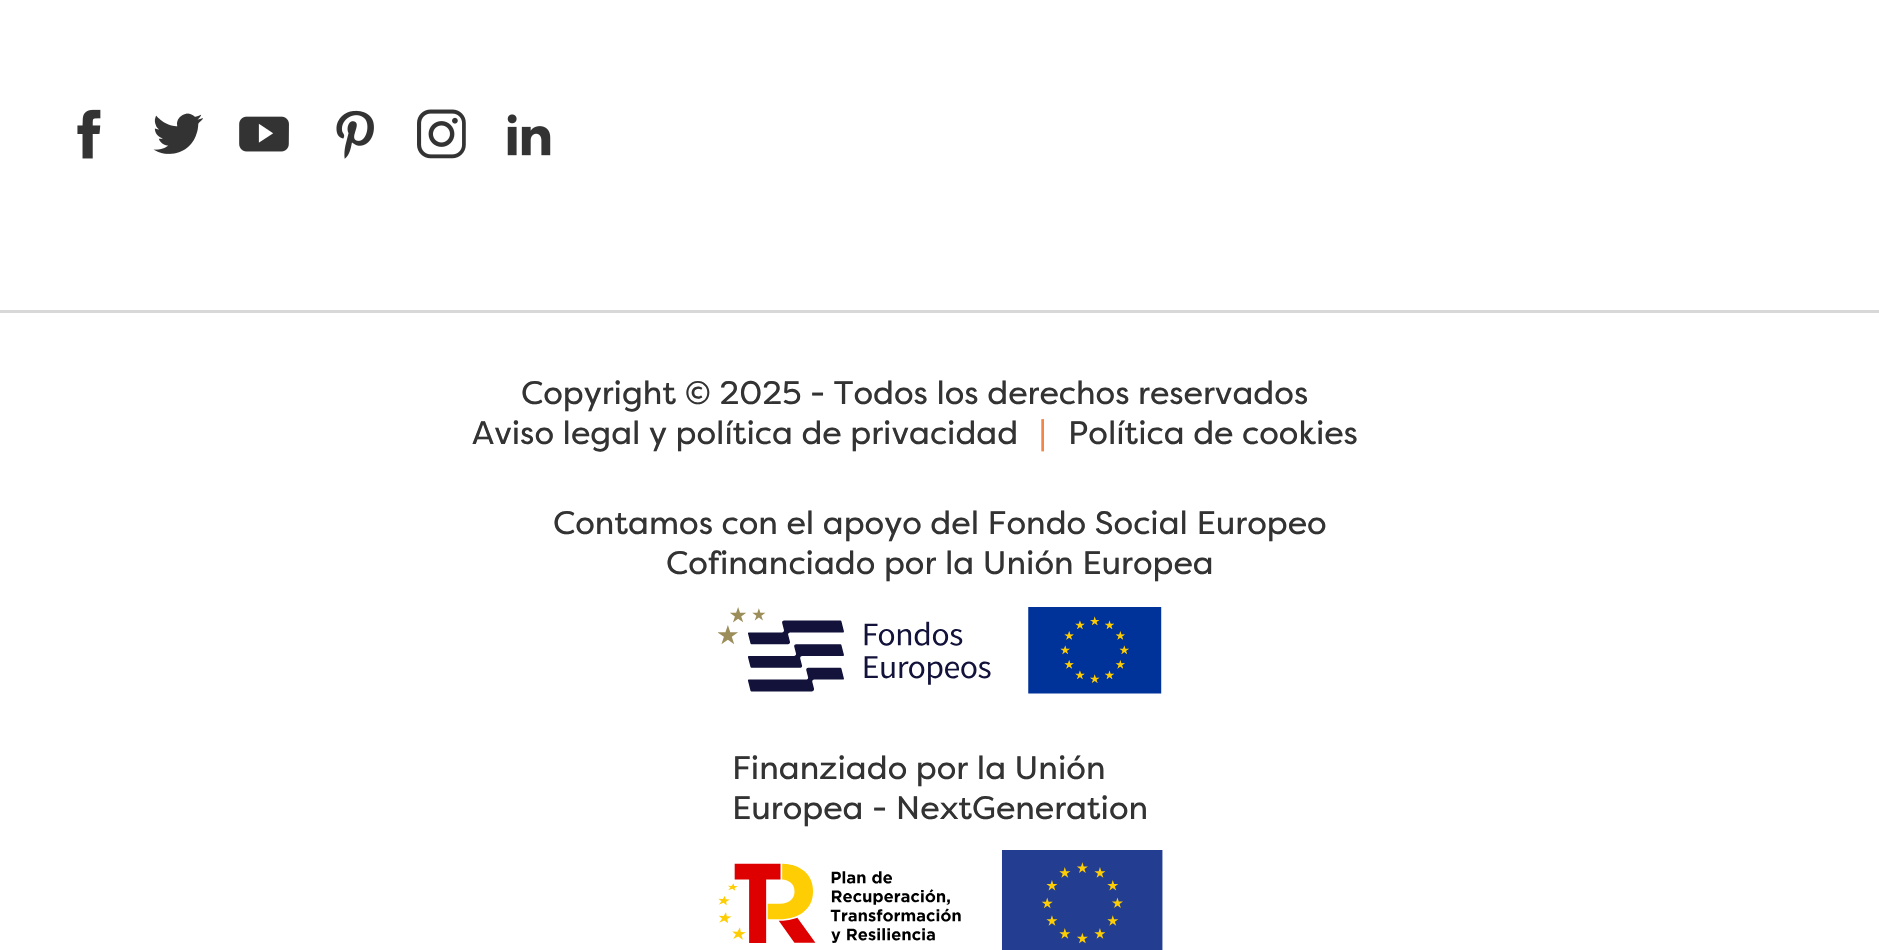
void draw(SkCanvas* canvas) {
	SkPaint fill;
	fill.setAntiAlias(true);
	auto makeFont = [&](const char* family, int weight, float size, bool italic = false) {
		SkFontStyle style(weight, SkFontStyle::kNormal_Width,
			italic ? SkFontStyle::kItalic_Slant : SkFontStyle::kUpright_Slant);
		SkFont result(fontMgr->matchFamilyStyle(family, style), size);
		result.setSubpixel(true);
		return result;
	};
	auto text = [&](const char* s, float x, float y, const SkFont& font) {
		canvas->drawString(s, x, y, font, fill);
	};
	auto box = [&](float l, float t, float r, float b) {
		canvas->drawRect(SkRect::MakeLTRB(l, t, r, b), fill);
	};
	auto picture = [&](const char* path, float l, float t, float r, float b) {
		auto image = SkImages::DeferredFromEncodedData(SkData::MakeFromFileName(path));
		canvas->drawImageRect(image, SkRect::MakeLTRB(l, t, r, b), SkSamplingOptions());
	};
	canvas->clear(0xFFFFFFFF);
	fill.setColor(0xFFD8D8D8);
	box(0, 310, 1879, 313);
	picture("image0.png", 77, 109, 101, 159);
	picture("image1.png", 153, 113, 203, 154);
	picture("image2.png", 239, 116, 289, 152);
	picture("image3.png", 336, 110, 374, 159);
	picture("image4.png", 417, 109, 466, 159);
	picture("image5.png", 507, 114, 551, 156);
	picture("image6.png", 718, 607, 1162, 694);
	picture("image7.png", 718, 850, 1163, 950);
	auto font1 = makeFont("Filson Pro", 400, 32.5f);
	fill.setColor(0xFF333333);
	text("Copyright © 2025 - Todos los derechos reservados", 521, 404, font1);
	text("Aviso legal y política de privacidad", 472, 444, font1);
	fill.setColor(0xFFF1864B);
	text("|", 1039, 444, font1);
	fill.setColor(0xFF333333);
	text("Política de cookies", 1068, 444, font1);
	text("Contamos con el apoyo del Fondo Social Europeo", 553, 534, font1);
	text("Cofinanciado por la Unión Europea", 666, 574, font1);
	text("Finanziado por la Unión", 732, 779, font1);
	text("Europea - NextGeneration", 732, 819, font1);
}
